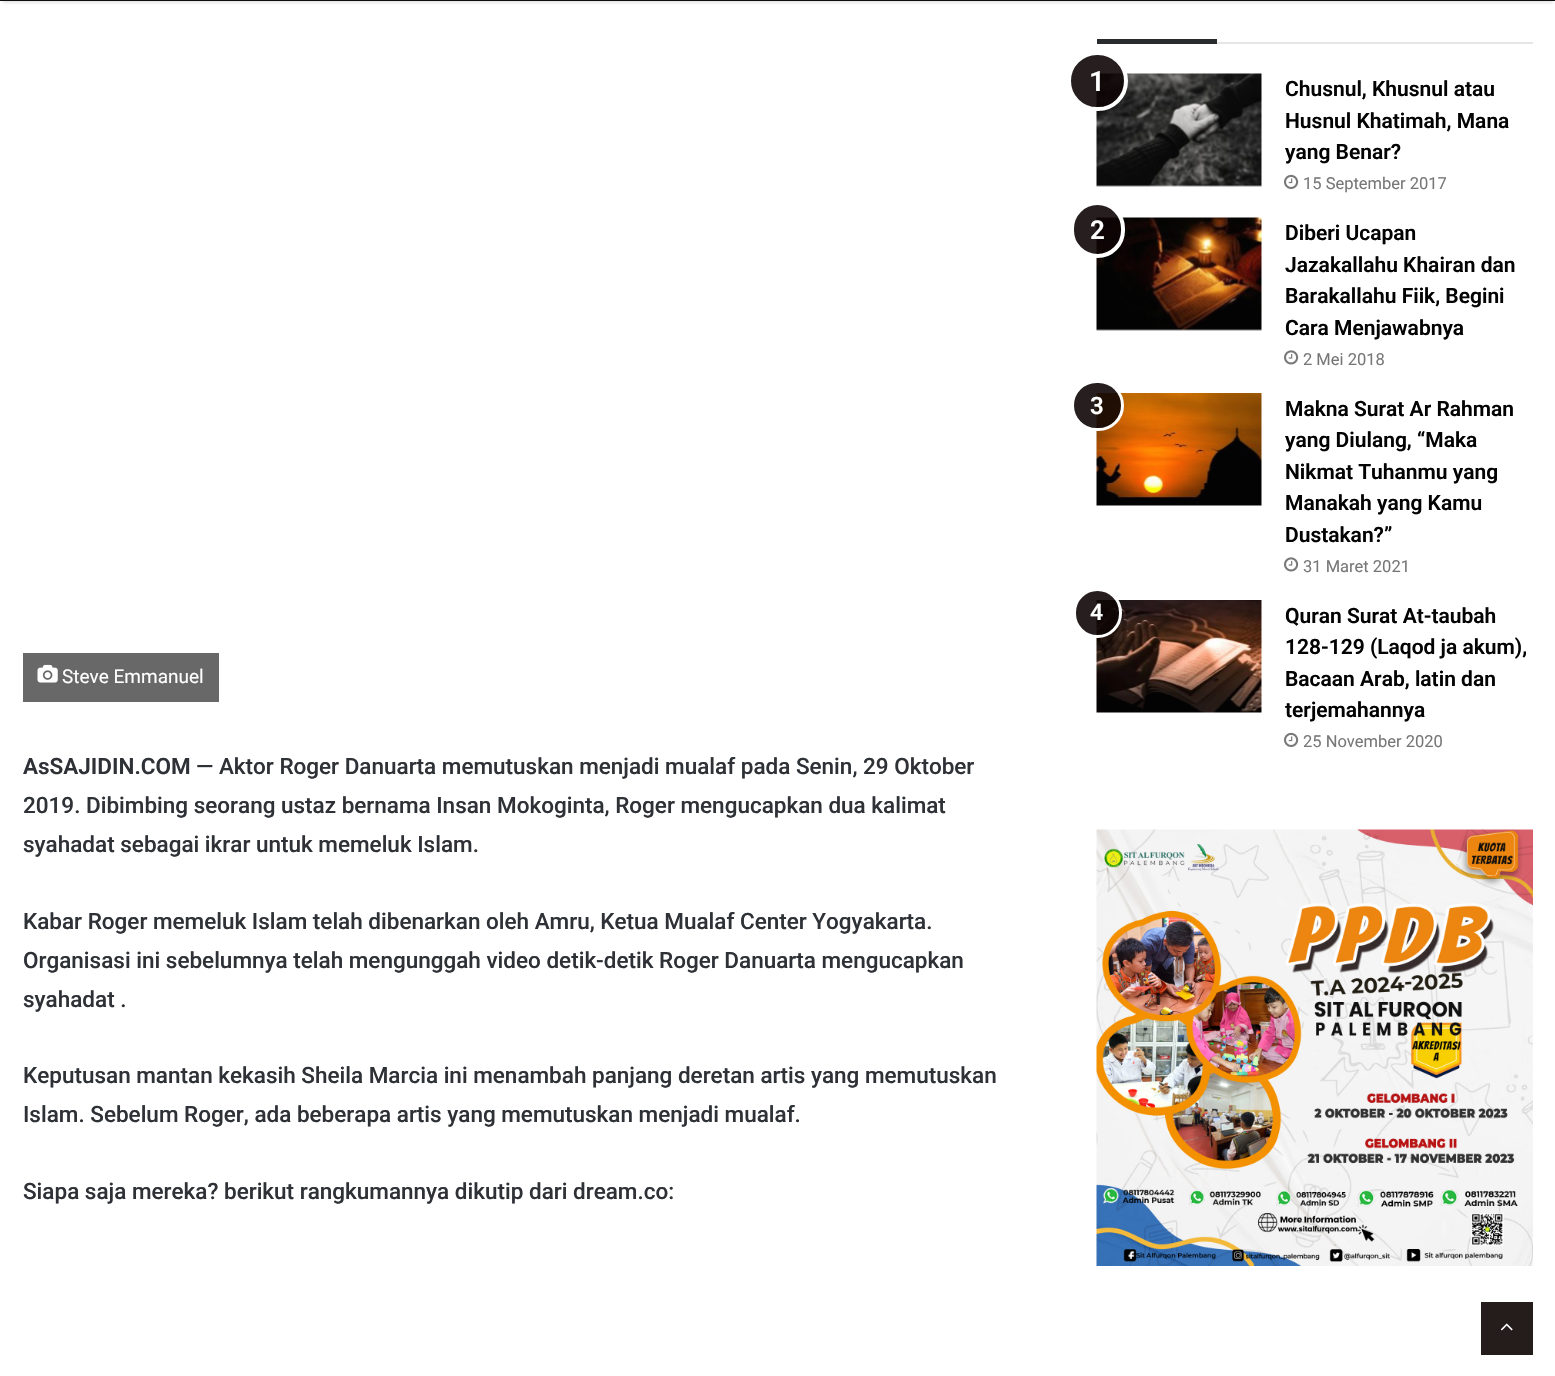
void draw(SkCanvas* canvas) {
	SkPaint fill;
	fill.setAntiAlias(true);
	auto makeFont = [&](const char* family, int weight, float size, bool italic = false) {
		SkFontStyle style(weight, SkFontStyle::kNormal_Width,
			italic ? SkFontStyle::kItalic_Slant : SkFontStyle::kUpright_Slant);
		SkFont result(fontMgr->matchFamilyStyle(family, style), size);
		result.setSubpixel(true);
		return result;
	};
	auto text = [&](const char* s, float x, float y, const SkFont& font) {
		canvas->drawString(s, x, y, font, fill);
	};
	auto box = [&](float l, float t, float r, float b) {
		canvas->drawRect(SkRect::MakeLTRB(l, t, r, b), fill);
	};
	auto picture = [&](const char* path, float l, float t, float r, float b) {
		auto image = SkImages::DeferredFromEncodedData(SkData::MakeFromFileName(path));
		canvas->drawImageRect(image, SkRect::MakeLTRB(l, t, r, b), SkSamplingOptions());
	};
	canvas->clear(0xFFFFFFFF);
	fill.setColor(0x1A000000);
	fill.setMaskFilter(SkMaskFilter::MakeBlur(kNormal_SkBlurStyle, 1.5f));
	canvas->drawRect(SkRect::MakeLTRB(3, -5, 1553, 3), fill);
	fill.setMaskFilter(nullptr);
	fill.setColor(0xFF0F0F0F);
	box(0, 0, 1555, 1);
	fill.setColor(0xFFE6E6E6);
	box(1217, 42, 1533, 44);
	fill.setColor(0xFF292B2F);
	box(1097, 39, 1217, 44);
	picture("image0.png", 1096, 73, 1262, 187);
	fill.setColor(0xE30C0303);
	canvas->drawRoundRect(SkRect::MakeLTRB(1069, 53, 1126, 109), 28, 28, fill);
	fill.setStyle(SkPaint::kStroke_Style);
	fill.setStrokeWidth(4);
	fill.setColor(0xFFFFFFFF);
	canvas->drawRoundRect(SkRect::MakeLTRB(1069, 53, 1126, 109), 28, 28, fill);
	picture("image1.png", 1284, 174, 1299, 189);
	picture("image2.png", 1096, 217, 1262, 331);
	fill.setStyle(SkPaint::kFill_Style);
	fill.setColor(0xE30C0303);
	canvas->drawRoundRect(SkRect::MakeLTRB(1072, 203, 1123, 256), 25.5f, 25.5f, fill);
	fill.setStyle(SkPaint::kStroke_Style);
	fill.setColor(0xFFFFFFFF);
	canvas->drawRoundRect(SkRect::MakeLTRB(1072, 203, 1123, 256), 25.5f, 25.5f, fill);
	picture("image3.png", 1284, 350, 1299, 365);
	picture("image4.png", 1096, 393, 1262, 506);
	fill.setStyle(SkPaint::kFill_Style);
	fill.setColor(0xE30C0303);
	canvas->drawRoundRect(SkRect::MakeLTRB(1072.5f, 381.5f, 1122.5f, 429.5f), 24, 24, fill);
	fill.setStyle(SkPaint::kStroke_Style);
	fill.setStrokeWidth(3);
	fill.setColor(0xFFFFFFFF);
	canvas->drawRoundRect(SkRect::MakeLTRB(1072.5f, 381.5f, 1122.5f, 429.5f), 24, 24, fill);
	picture("image3.png", 1284, 557, 1299, 572);
	picture("image5.png", 1096, 600, 1262, 713);
	fill.setStyle(SkPaint::kFill_Style);
	fill.setColor(0xE30C0303);
	canvas->drawRoundRect(SkRect::MakeLTRB(1074.5f, 589.5f, 1120.5f, 636.5f), 23, 23, fill);
	fill.setStyle(SkPaint::kStroke_Style);
	fill.setColor(0xFFFFFFFF);
	canvas->drawRoundRect(SkRect::MakeLTRB(1074.5f, 589.5f, 1120.5f, 636.5f), 23, 23, fill);
	picture("image1.png", 1284, 732, 1299, 747);
	picture("image6.png", 1096, 829, 1533, 1266);
	fill.setStyle(SkPaint::kFill_Style);
	fill.setColor(0xFF686868);
	box(23, 653, 219, 702);
	picture("image7.png", 37, 664, 58, 683);
	fill.setColor(0xFF251C1C);
	box(1481, 1302, 1533, 1355);
	picture("image8.png", 1500, 1323, 1513, 1331);
	auto font1 = makeFont("Roboto", 600, 28);
	fill.setColor(0xFFFFFFFF);
	text("1", 1089, 91, font1);
	auto font2 = makeFont("Roboto", 600, 21);
	fill.setColor(0xFF030303);
	text("Chusnul, Khusnul atau", 1285, 96, font2);
	text("Husnul Khatimah, Mana", 1285, 128, font2);
	text("yang Benar?", 1285, 159, font2);
	auto font3 = makeFont("Roboto", 400, 16.5f);
	fill.setColor(0xFF777777);
	text("15 September 2017", 1303, 189, font3);
	auto font4 = makeFont("Roboto", 600, 26);
	fill.setColor(0xFFFFFFFF);
	text("2", 1090, 239, font4);
	fill.setColor(0xFF030303);
	text("Diberi Ucapan", 1285, 240, font2);
	text("Jazakallahu Khairan dan", 1285, 272, font2);
	text("Barakallahu Fiik, Begini", 1285, 303, font2);
	text("Cara Menjawabnya", 1285, 335, font2);
	fill.setColor(0xFF777777);
	text("2 Mei 2018", 1303, 365, font3);
	auto font5 = makeFont("Roboto", 600, 24);
	fill.setColor(0xFFFFFFFF);
	text("3", 1090, 414, font5);
	fill.setColor(0xFF030303);
	text("Makna Surat Ar Rahman", 1285, 416, font2);
	text("yang Diulang, “Maka", 1285, 447, font2);
	text("Nikmat Tuhanmu yang", 1285, 479, font2);
	text("Manakah yang Kamu", 1285, 510, font2);
	text("Dustakan?”", 1285, 542, font2);
	fill.setColor(0xFF777777);
	text("31 Maret 2021", 1303, 572, font3);
	auto font6 = makeFont("Roboto", 600, 23);
	fill.setColor(0xFFFFFFFF);
	text("4", 1090, 620, font6);
	fill.setColor(0xFF030303);
	text("Quran Surat At-taubah", 1285, 623, font2);
	text("128-129 (Laqod ja akum),", 1285, 654, font2);
	text("Bacaan Arab, latin dan", 1285, 686, font2);
	text("terjemahannya", 1285, 717, font2);
	fill.setColor(0xFF777777);
	text("25 November 2020", 1303, 747, font3);
	auto font7 = makeFont("Roboto", 400, 19);
	fill.setColor(0xFFFFFFFF);
	text("Steve Emmanuel", 62, 683, font7);
	auto font8 = makeFont("Roboto", 600, 22.5f);
	fill.setColor(0xFF2E3136);
	text("AsSAJIDIN.COM", 23, 774, font8);
	auto font9 = makeFont("Roboto", 500, 22.5f);
	text("— Aktor Roger Danuarta memutuskan menjadi mualaf pada Senin, 29 Oktober", 196, 774, font9);
	text("2019. Dibimbing seorang ustaz bernama Insan Mokoginta, Roger mengucapkan dua kalimat", 23, 813, font9);
	text("syahadat sebagai ikrar untuk memeluk Islam.", 23, 852, font9);
	text("Kabar Roger memeluk Islam telah dibenarkan oleh Amru, Ketua Mualaf Center Yogyakarta.", 23, 929, font9);
	text("Organisasi ini sebelumnya telah mengunggah video detik-detik Roger Danuarta mengucapkan", 23, 968, font9);
	text("syahadat .", 23, 1007, font9);
	text("Keputusan mantan kekasih Sheila Marcia ini menambah panjang deretan artis yang memutuskan", 23, 1083, font9);
	text("Islam. Sebelum Roger, ada beberapa artis yang memutuskan menjadi mualaf.", 23, 1122, font9);
	text("Siapa saja mereka? berikut rangkumannya dikutip dari dream.co:", 23, 1199, font9);
}
